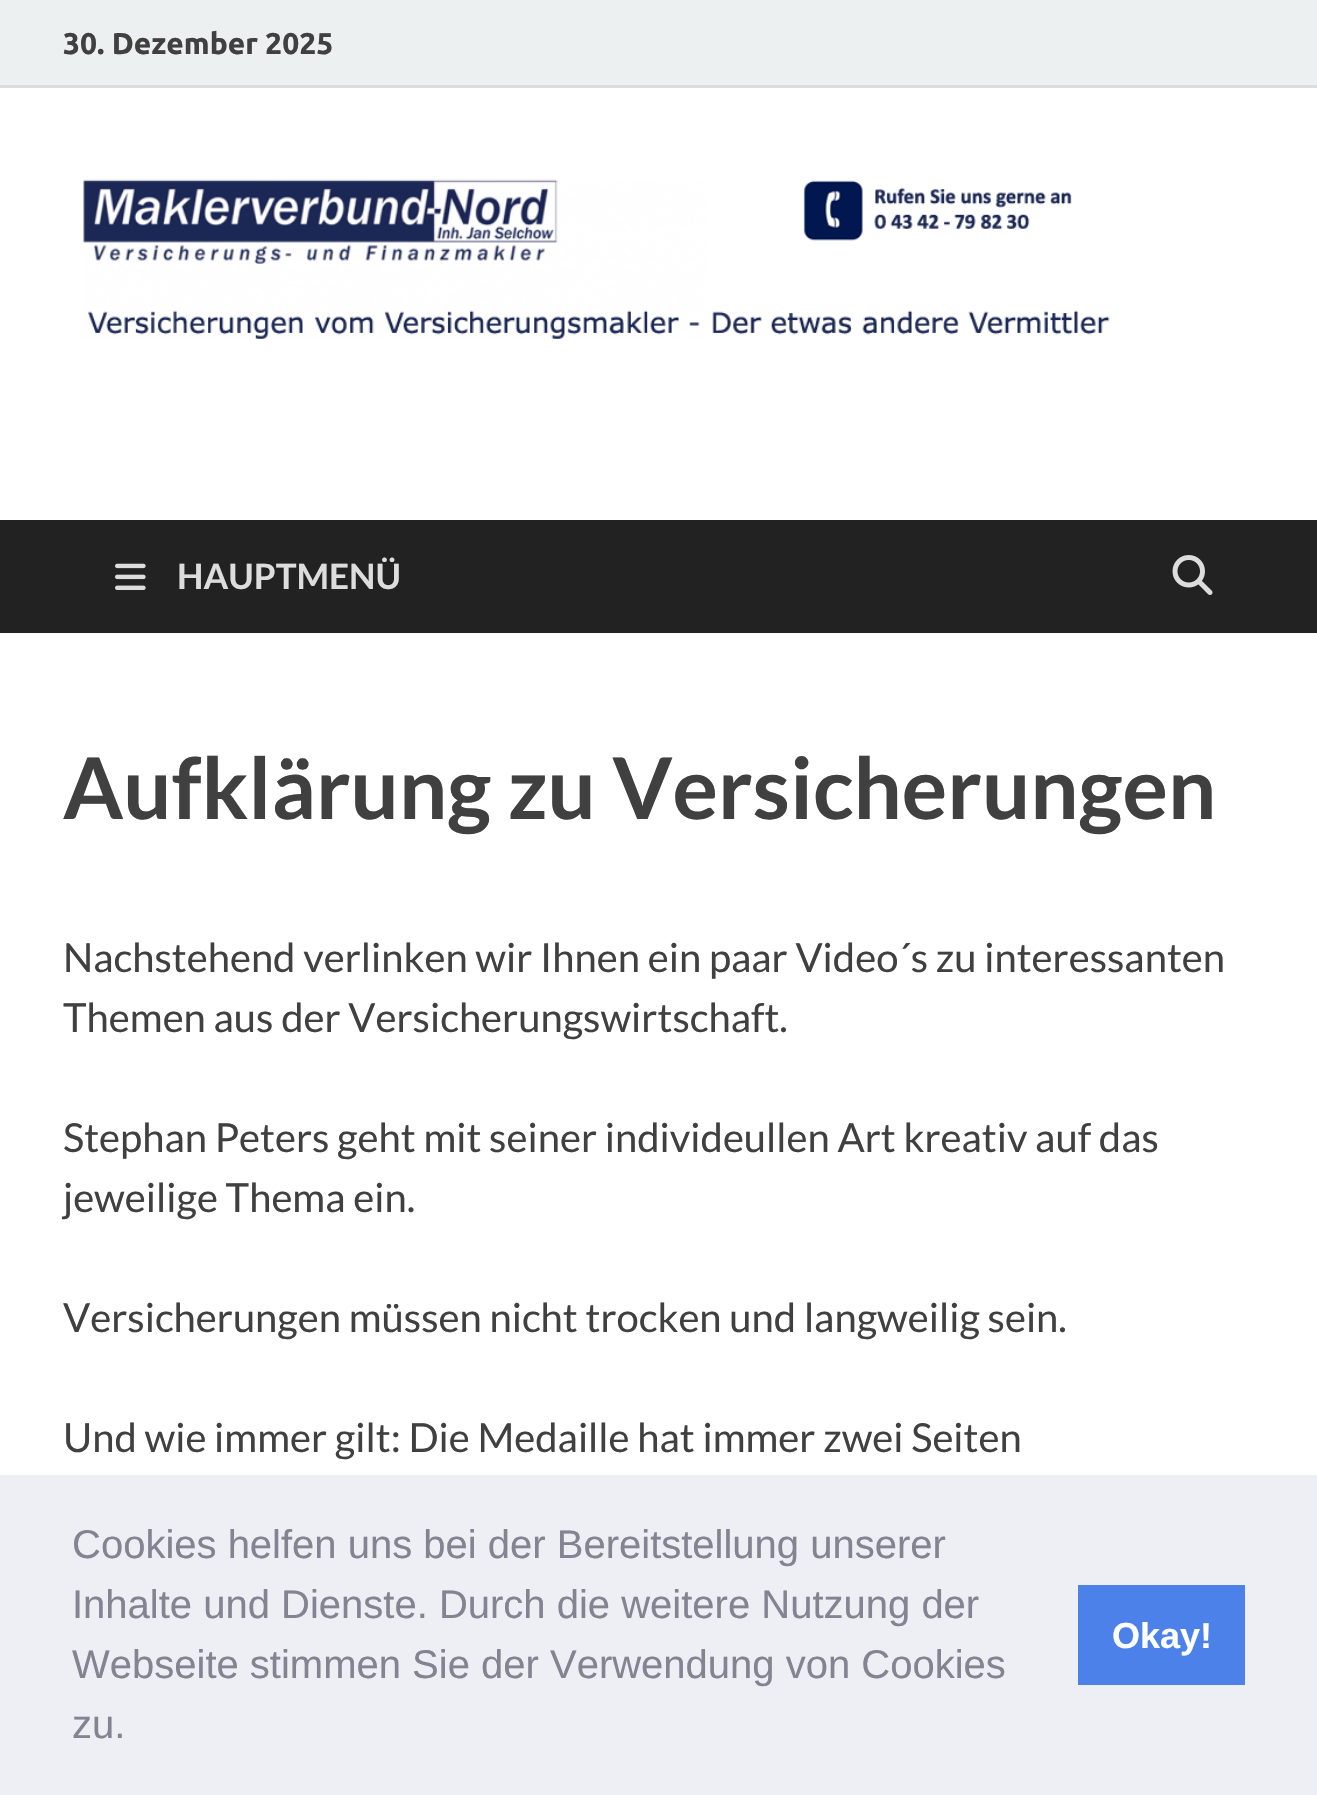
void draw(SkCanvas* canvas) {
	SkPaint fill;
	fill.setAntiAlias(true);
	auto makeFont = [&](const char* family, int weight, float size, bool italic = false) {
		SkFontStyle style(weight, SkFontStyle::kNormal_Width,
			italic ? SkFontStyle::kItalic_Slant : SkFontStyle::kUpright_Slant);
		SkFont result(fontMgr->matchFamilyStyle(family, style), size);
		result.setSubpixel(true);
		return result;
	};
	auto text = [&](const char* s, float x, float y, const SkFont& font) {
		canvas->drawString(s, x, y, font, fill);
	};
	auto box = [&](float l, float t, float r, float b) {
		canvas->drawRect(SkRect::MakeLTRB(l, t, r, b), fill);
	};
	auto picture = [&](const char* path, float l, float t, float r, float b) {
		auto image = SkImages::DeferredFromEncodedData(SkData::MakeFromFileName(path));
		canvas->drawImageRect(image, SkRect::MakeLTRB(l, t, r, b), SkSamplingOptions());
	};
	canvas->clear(0xFFFFFFFF);
	fill.setColor(0xFFECF0F1);
	box(0, 0, 1317, 85);
	fill.setColor(0xFFDDDDDD);
	box(0, 85, 1317, 88);
	picture("image0.png", 83, 179, 1110, 339);
	fill.setColor(0xFF222222);
	box(0, 520, 1317, 633);
	picture("image1.png", 115, 563, 146, 590);
	picture("image2.png", 1172, 555, 1213, 595);
	fill.setColor(0xFFEDEFF5);
	box(0, 1475, 1317, 1795);
	fill.setColor(0xFF4B81E8);
	box(1078, 1585, 1245, 1685);
	auto font1 = makeFont("Ubuntu", 700, 30);
	fill.setColor(0xFF404040);
	text("30. Dezember 2025", 63, 54, font1);
	auto font2 = makeFont("Lato", 700, 35);
	fill.setColor(0xFFDDDDDD);
	text("HAUPTMENÜ", 177, 589, font2);
	auto font3 = makeFont("Lato", 700, 85);
	fill.setColor(0xFF404040);
	text("Aufklärung zu Versicherungen", 63, 819, font3);
	auto font4 = makeFont("Lato", 400, 40);
	text("Nachstehend verlinken wir Ihnen ein paar Video´s zu interessanten", 63, 972, font4);
	text("Themen aus der Versicherungswirtschaft.", 63, 1032, font4);
	text("Stephan Peters geht mit seiner individeullen Art kreativ auf das", 63, 1152, font4);
	text("jeweilige Thema ein.", 63, 1212, font4);
	text("Versicherungen müssen nicht trocken und langweilig sein.", 63, 1332, font4);
	text("Und wie immer gilt: Die Medaille hat immer zwei Seiten", 63, 1452, font4);
	auto font5 = makeFont("Liberation Sans", 400, 40);
	fill.setColor(0xFF838391);
	text("Cookies helfen uns bei der Bereitstellung unserer", 72, 1558, font5);
	text("Inhalte und Dienste. Durch die weitere Nutzung der", 72, 1618, font5);
	text("Webseite stimmen Sie der Verwendung von Cookies", 72, 1678, font5);
	text("zu.", 72, 1738, font5);
	auto font6 = makeFont("Liberation Sans", 700, 36);
	fill.setColor(0xFFFFFFFF);
	text("Okay!", 1112, 1648, font6);
}
